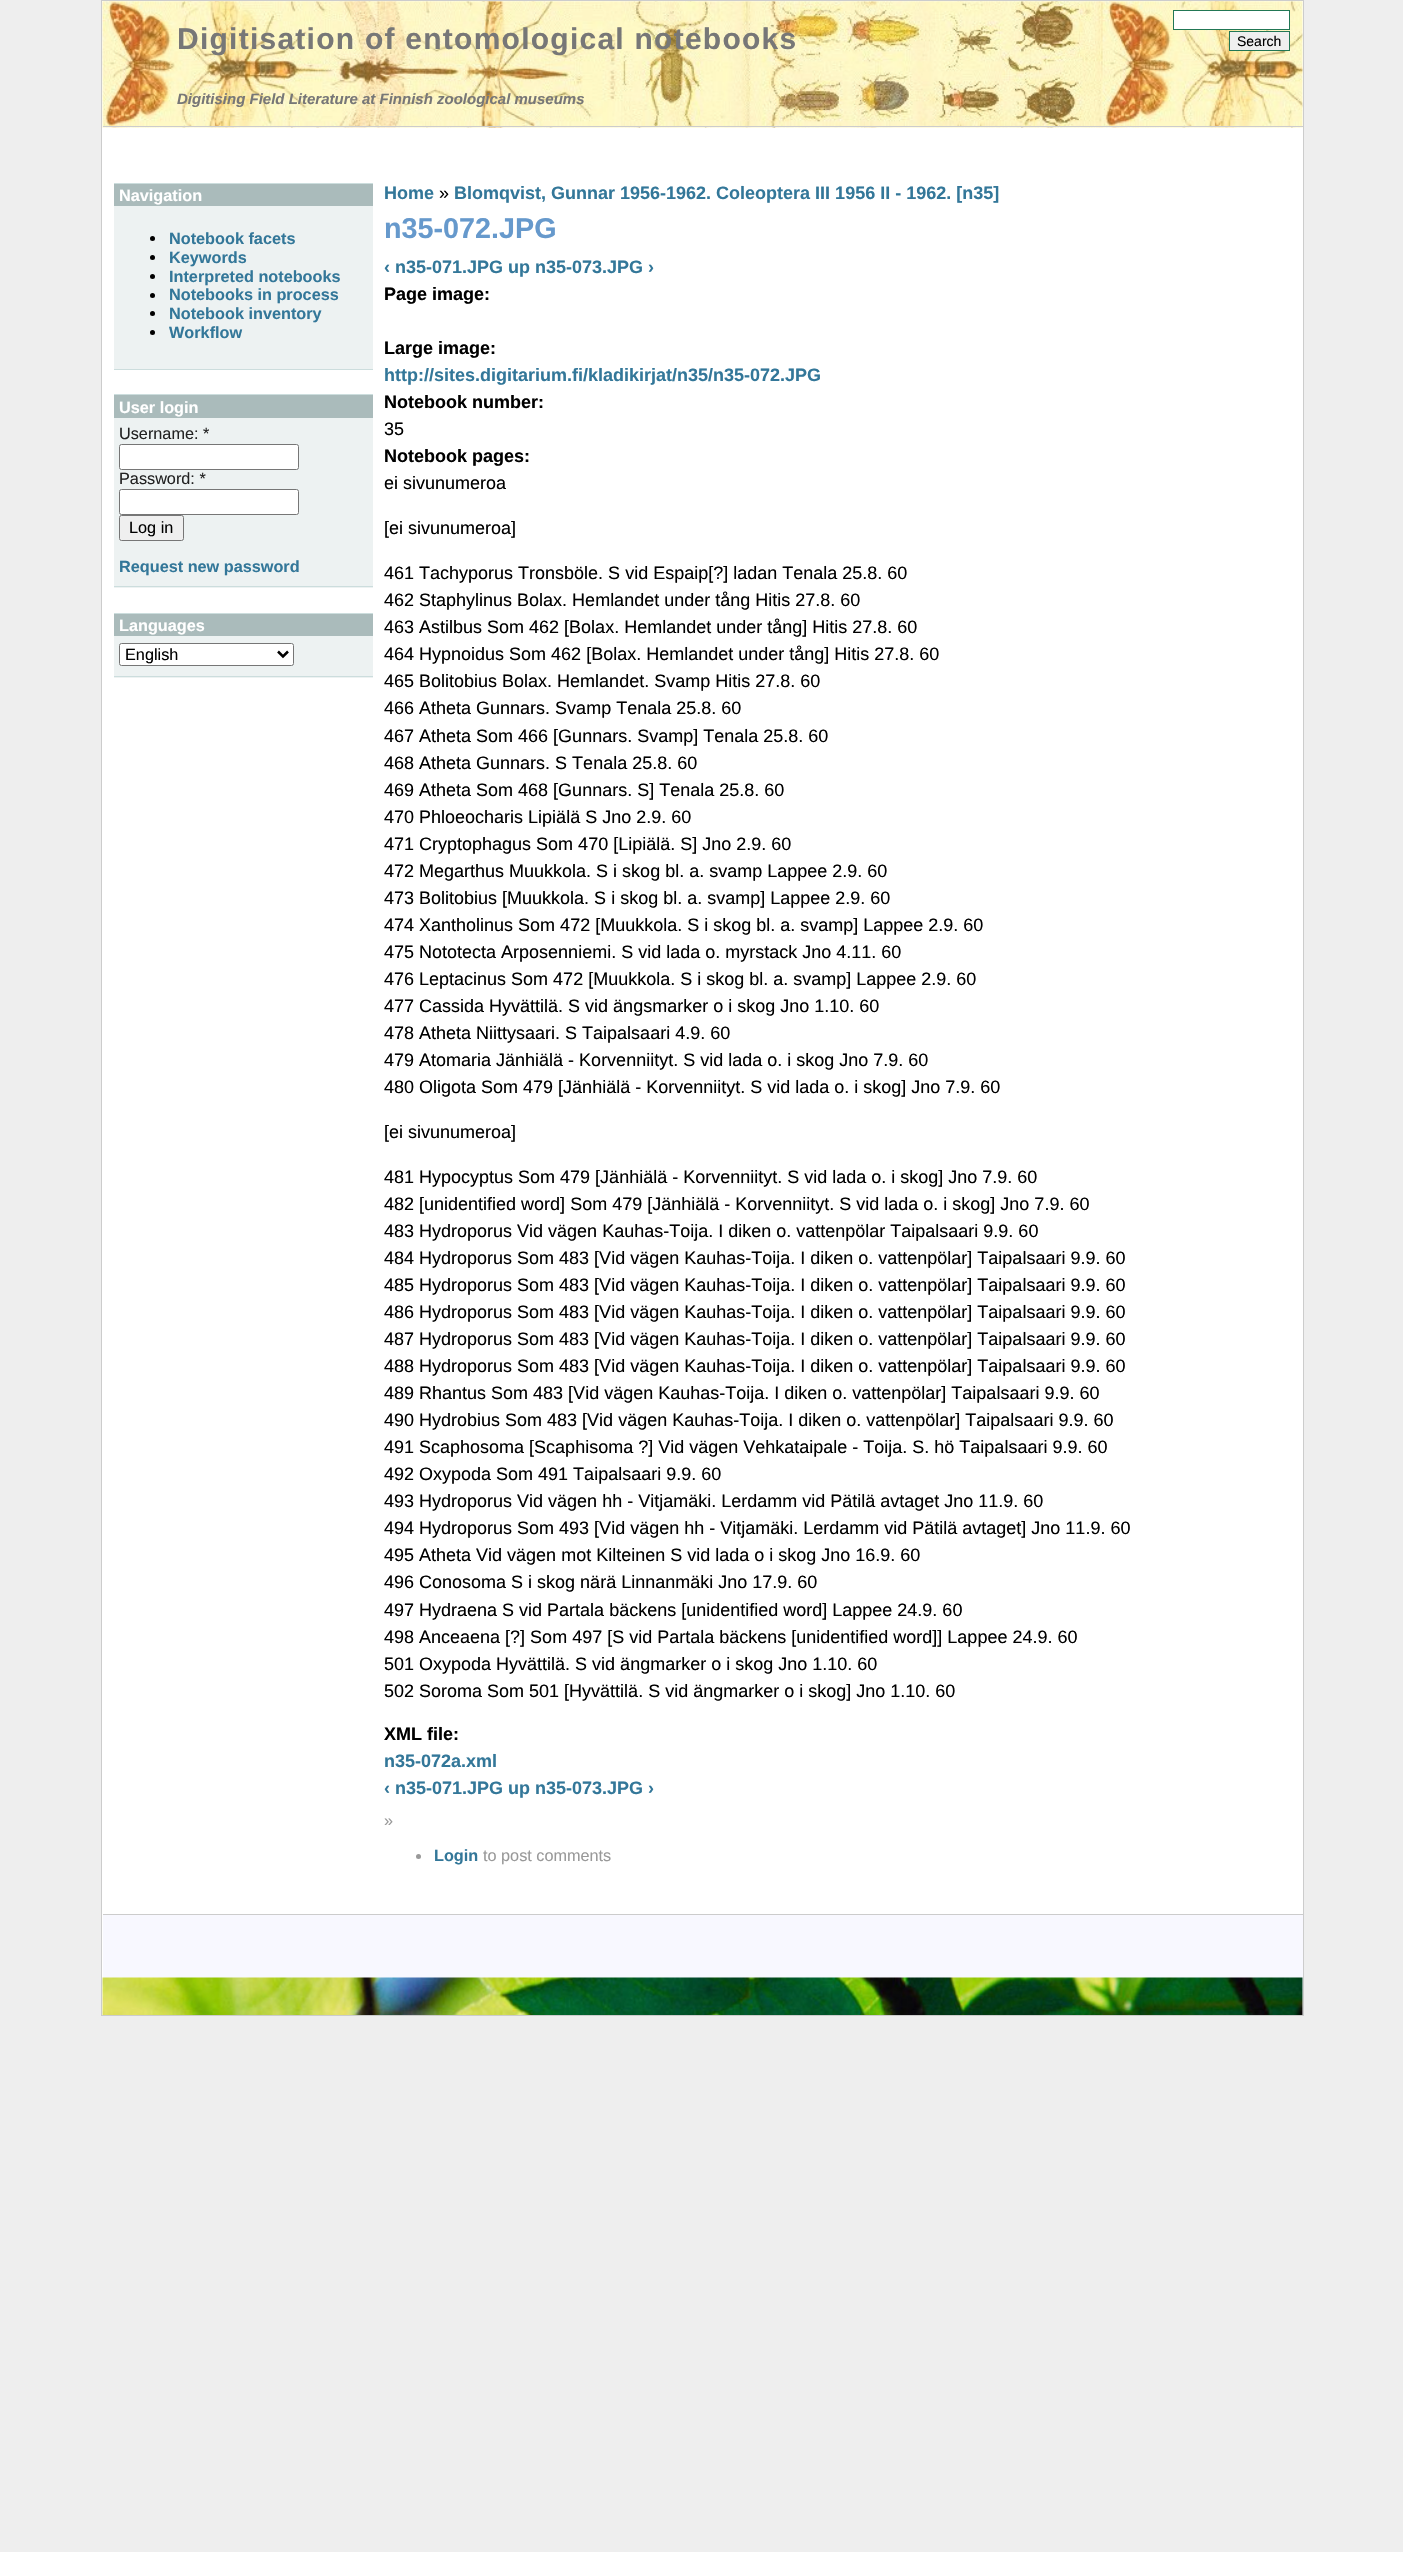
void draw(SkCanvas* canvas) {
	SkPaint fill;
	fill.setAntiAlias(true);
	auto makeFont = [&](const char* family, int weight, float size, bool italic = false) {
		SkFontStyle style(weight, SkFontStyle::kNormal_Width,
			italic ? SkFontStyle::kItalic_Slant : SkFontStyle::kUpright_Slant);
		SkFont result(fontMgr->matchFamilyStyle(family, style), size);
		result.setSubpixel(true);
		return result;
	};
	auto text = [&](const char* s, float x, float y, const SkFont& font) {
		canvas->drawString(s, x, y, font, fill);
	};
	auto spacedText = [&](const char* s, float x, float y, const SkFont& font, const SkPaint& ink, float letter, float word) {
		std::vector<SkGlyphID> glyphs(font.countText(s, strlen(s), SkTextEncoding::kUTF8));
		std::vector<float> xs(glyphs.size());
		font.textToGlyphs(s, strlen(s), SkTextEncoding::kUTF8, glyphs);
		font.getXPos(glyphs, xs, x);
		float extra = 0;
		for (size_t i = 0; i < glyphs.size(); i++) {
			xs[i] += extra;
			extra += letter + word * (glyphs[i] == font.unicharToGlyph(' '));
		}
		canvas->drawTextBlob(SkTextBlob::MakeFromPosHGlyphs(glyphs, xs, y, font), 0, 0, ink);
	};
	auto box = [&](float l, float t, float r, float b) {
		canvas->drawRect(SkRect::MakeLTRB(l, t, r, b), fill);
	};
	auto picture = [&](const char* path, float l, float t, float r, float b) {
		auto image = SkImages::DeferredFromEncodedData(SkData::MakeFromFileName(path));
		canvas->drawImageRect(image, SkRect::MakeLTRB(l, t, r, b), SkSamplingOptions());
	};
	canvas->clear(0xFFEEEEEE);
	fill.setColor(0xFFFFFFFF);
	canvas->drawRect(SkRect::MakeLTRB(101.5f, 0.5f, 1303.5f, 2015.5f), fill);
	fill.setStyle(SkPaint::kStroke_Style);
	fill.setStrokeWidth(1);
	fill.setColor(0xFFCCCCCC);
	canvas->drawRect(SkRect::MakeLTRB(101.5f, 0.5f, 1303.5f, 2015.5f), fill);
	picture("image0.png", 102, 1, 1303, 128);
	fill.setStyle(SkPaint::kFill_Style);
	box(103, 126, 1303, 127);
	fill.setColor(0xFFFFFFFF);
	canvas->drawRect(SkRect::MakeLTRB(1173.5f, 10.5f, 1289.5f, 29.5f), fill);
	fill.setStyle(SkPaint::kStroke_Style);
	fill.setColor(0xFF227755);
	canvas->drawRect(SkRect::MakeLTRB(1173.5f, 10.5f, 1289.5f, 29.5f), fill);
	fill.setStyle(SkPaint::kFill_Style);
	fill.setColor(0xFFEFEFEF);
	canvas->drawRect(SkRect::MakeLTRB(1229.5f, 31.5f, 1289.5f, 50.5f), fill);
	fill.setStyle(SkPaint::kStroke_Style);
	fill.setColor(0xFF227755);
	canvas->drawRect(SkRect::MakeLTRB(1229.5f, 31.5f, 1289.5f, 50.5f), fill);
	fill.setStyle(SkPaint::kFill_Style);
	fill.setColor(0xFFEDF2F2);
	box(114, 206, 373, 369);
	fill.setColor(0xFFCCDDDD);
	box(114, 183, 373, 184);
	box(114, 369, 373, 370);
	fill.setColor(0xFFAABBBB);
	box(114, 184, 373, 206);
	fill.setColor(0xFF000000);
	canvas->drawCircle(152.5f, 238.5f, 2.5f, fill);
	canvas->drawCircle(152.5f, 257.5f, 2.5f, fill);
	canvas->drawCircle(152.5f, 276.5f, 2.5f, fill);
	canvas->drawCircle(152.5f, 295.5f, 2.5f, fill);
	canvas->drawCircle(152.5f, 313.5f, 2.5f, fill);
	canvas->drawCircle(152.5f, 332.5f, 2.5f, fill);
	fill.setColor(0xFFEDF2F2);
	box(114, 418, 373, 588);
	fill.setColor(0xFFCCDDDD);
	box(114, 394, 373, 395);
	box(114, 586, 373, 587);
	fill.setColor(0xFFAABBBB);
	box(114, 395, 373, 418);
	fill.setColor(0xFFFFFFFF);
	canvas->drawRoundRect(SkRect::MakeLTRB(119.5f, 444.5f, 298.5f, 469.5f), 2, 2, fill);
	fill.setStyle(SkPaint::kStroke_Style);
	fill.setColor(0xFF767676);
	canvas->drawRoundRect(SkRect::MakeLTRB(119.5f, 444.5f, 298.5f, 469.5f), 2, 2, fill);
	fill.setStyle(SkPaint::kFill_Style);
	fill.setColor(0xFFFFFFFF);
	canvas->drawRoundRect(SkRect::MakeLTRB(119.5f, 489.5f, 298.5f, 514.5f), 2, 2, fill);
	fill.setStyle(SkPaint::kStroke_Style);
	fill.setColor(0xFF767676);
	canvas->drawRoundRect(SkRect::MakeLTRB(119.5f, 489.5f, 298.5f, 514.5f), 2, 2, fill);
	fill.setStyle(SkPaint::kFill_Style);
	fill.setColor(0xFFEFEFEF);
	canvas->drawRoundRect(SkRect::MakeLTRB(119.5f, 515.5f, 183.5f, 540.5f), 2, 2, fill);
	fill.setStyle(SkPaint::kStroke_Style);
	fill.setColor(0xFF767676);
	canvas->drawRoundRect(SkRect::MakeLTRB(119.5f, 515.5f, 183.5f, 540.5f), 2, 2, fill);
	fill.setStyle(SkPaint::kFill_Style);
	fill.setColor(0xFFEDF2F2);
	box(114, 636, 373, 678);
	fill.setColor(0xFFCCDDDD);
	box(114, 613, 373, 614);
	box(114, 676, 373, 677);
	fill.setColor(0xFFAABBBB);
	box(114, 614, 373, 636);
	fill.setColor(0xFFFFFFFF);
	canvas->drawRoundRect(SkRect::MakeLTRB(119.5f, 643.5f, 293.5f, 665.5f), 2, 2, fill);
	fill.setStyle(SkPaint::kStroke_Style);
	fill.setColor(0xFF767676);
	canvas->drawRoundRect(SkRect::MakeLTRB(119.5f, 643.5f, 293.5f, 665.5f), 2, 2, fill);
	fill.setStrokeWidth(2.5f);
	fill.setColor(0xFF000000);
	canvas->drawPath(SkPathBuilder().moveTo(278, 651.5f).lineTo(283, 656.5f).lineTo(288, 651.5f).detach(), fill);
	fill.setStyle(SkPaint::kFill_Style);
	fill.setColor(0xFF999999);
	canvas->drawCircle(418.5f, 1856.5f, 2.5f, fill);
	fill.setColor(0xFFF8F8FF);
	box(103, 1915, 1303, 2015);
	picture("image1.png", 102, 1977, 1303, 2015);
	fill.setColor(0xFFCCCCCC);
	box(103, 1914, 1303, 1915);
	auto font1 = makeFont("Liberation Sans", 700, 30);
	fill.setColor(0xFF777777);
	spacedText("Digitisation of entomological notebooks", 177, 49, font1, fill, 1.25f, 0);
	auto font2 = makeFont("Liberation Sans", 700, 15, true);
	text("Digitising Field Literature at Finnish zoological museums", 177, 104, font2);
	auto font3 = makeFont("Liberation Sans", 400, 14);
	fill.setColor(0xFF000000);
	text("Search", 1237, 46, font3);
	auto font4 = makeFont("Liberation Sans", 700, 16.25f);
	fill.setColor(0xFFFFFFFF);
	text("Navigation", 119, 201, font4);
	fill.setColor(0xFF337799);
	text("Notebook facets", 169, 244, font4);
	text("Keywords", 169, 263, font4);
	text("Interpreted notebooks", 169, 282, font4);
	text("Notebooks in process", 169, 300, font4);
	text("Notebook inventory", 169, 319, font4);
	text("Workflow", 169, 338, font4);
	fill.setColor(0xFFFFFFFF);
	text("User login", 119, 413, font4);
	auto font5 = makeFont("Liberation Sans", 400, 16.25f);
	fill.setColor(0xFF222222);
	text("Username: *", 119, 439, font5);
	text("Password: *", 119, 484, font5);
	fill.setColor(0xFF000000);
	text("Log in", 129, 533, font5);
	fill.setColor(0xFF337799);
	text("Request new password", 119, 572, font4);
	fill.setColor(0xFFFFFFFF);
	text("Languages", 119, 631, font4);
	fill.setColor(0xFF000000);
	text("English", 125, 660, font5);
	auto font6 = makeFont("Liberation Sans", 700, 18);
	fill.setColor(0xFF337799);
	text("Home", 384, 199, font6);
	auto font7 = makeFont("Liberation Sans", 400, 18);
	fill.setColor(0xFF000000);
	text("»", 439, 199, font7);
	fill.setColor(0xFF337799);
	text("Blomqvist, Gunnar 1956-1962. Coleoptera III 1956 II - 1962. [n35]", 454, 199, font6);
	auto font8 = makeFont("Liberation Sans", 700, 28.75f);
	fill.setColor(0xFF6699CC);
	text("n35-072.JPG", 384, 238, font8);
	fill.setColor(0xFF337799);
	text("‹ n35-071.JPG up n35-073.JPG ›", 384, 273, font6);
	fill.setColor(0xFF000000);
	text("Page image:", 384, 300, font6);
	text("Large image:", 384, 354, font6);
	fill.setColor(0xFF337799);
	text("http://sites.digitarium.fi/kladikirjat/n35/n35-072.JPG", 384, 381, font6);
	fill.setColor(0xFF000000);
	text("Notebook number:", 384, 408, font6);
	text("35", 384, 435, font7);
	text("Notebook pages:", 384, 462, font6);
	text("ei sivunumeroa", 384, 489, font7);
	text("[ei sivunumeroa]", 384, 534, font7);
	text("461 Tachyporus Tronsböle. S vid Espaip[?] ladan Tenala 25.8. 60", 384, 579, font7);
	text("462 Staphylinus Bolax. Hemlandet under tång Hitis 27.8. 60", 384, 606, font7);
	text("463 Astilbus Som 462 [Bolax. Hemlandet under tång] Hitis 27.8. 60", 384, 633, font7);
	text("464 Hypnoidus Som 462 [Bolax. Hemlandet under tång] Hitis 27.8. 60", 384, 660, font7);
	text("465 Bolitobius Bolax. Hemlandet. Svamp Hitis 27.8. 60", 384, 687, font7);
	text("466 Atheta Gunnars. Svamp Tenala 25.8. 60", 384, 714, font7);
	text("467 Atheta Som 466 [Gunnars. Svamp] Tenala 25.8. 60", 384, 742, font7);
	text("468 Atheta Gunnars. S Tenala 25.8. 60", 384, 769, font7);
	text("469 Atheta Som 468 [Gunnars. S] Tenala 25.8. 60", 384, 796, font7);
	text("470 Phloeocharis Lipiälä S Jno 2.9. 60", 384, 823, font7);
	text("471 Cryptophagus Som 470 [Lipiälä. S] Jno 2.9. 60", 384, 850, font7);
	text("472 Megarthus Muukkola. S i skog bl. a. svamp Lappee 2.9. 60", 384, 877, font7);
	text("473 Bolitobius [Muukkola. S i skog bl. a. svamp] Lappee 2.9. 60", 384, 904, font7);
	text("474 Xantholinus Som 472 [Muukkola. S i skog bl. a. svamp] Lappee 2.9. 60", 384, 931, font7);
	text("475 Nototecta Arposenniemi. S vid lada o. myrstack Jno 4.11. 60", 384, 958, font7);
	text("476 Leptacinus Som 472 [Muukkola. S i skog bl. a. svamp] Lappee 2.9. 60", 384, 985, font7);
	text("477 Cassida Hyvättilä. S vid ängsmarker o i skog Jno 1.10. 60", 384, 1012, font7);
	text("478 Atheta Niittysaari. S Taipalsaari 4.9. 60", 384, 1039, font7);
	text("479 Atomaria Jänhiälä - Korvenniityt. S vid lada o. i skog Jno 7.9. 60", 384, 1066, font7);
	text("480 Oligota Som 479 [Jänhiälä - Korvenniityt. S vid lada o. i skog] Jno 7.9. 60", 384, 1093, font7);
	text("[ei sivunumeroa]", 384, 1138, font7);
	text("481 Hypocyptus Som 479 [Jänhiälä - Korvenniityt. S vid lada o. i skog] Jno 7.9. 60", 384, 1183, font7);
	text("482 [unidentified word] Som 479 [Jänhiälä - Korvenniityt. S vid lada o. i skog] Jno 7.9. 60", 384, 1210, font7);
	text("483 Hydroporus Vid vägen Kauhas-Toija. I diken o. vattenpölar Taipalsaari 9.9. 60", 384, 1237, font7);
	text("484 Hydroporus Som 483 [Vid vägen Kauhas-Toija. I diken o. vattenpölar] Taipalsaari 9.9. 60", 384, 1264, font7);
	text("485 Hydroporus Som 483 [Vid vägen Kauhas-Toija. I diken o. vattenpölar] Taipalsaari 9.9. 60", 384, 1291, font7);
	text("486 Hydroporus Som 483 [Vid vägen Kauhas-Toija. I diken o. vattenpölar] Taipalsaari 9.9. 60", 384, 1318, font7);
	text("487 Hydroporus Som 483 [Vid vägen Kauhas-Toija. I diken o. vattenpölar] Taipalsaari 9.9. 60", 384, 1345, font7);
	text("488 Hydroporus Som 483 [Vid vägen Kauhas-Toija. I diken o. vattenpölar] Taipalsaari 9.9. 60", 384, 1372, font7);
	text("489 Rhantus Som 483 [Vid vägen Kauhas-Toija. I diken o. vattenpölar] Taipalsaari 9.9. 60", 384, 1399, font7);
	text("490 Hydrobius Som 483 [Vid vägen Kauhas-Toija. I diken o. vattenpölar] Taipalsaari 9.9. 60", 384, 1426, font7);
	text("491 Scaphosoma [Scaphisoma ?] Vid vägen Vehkataipale - Toija. S. hö Taipalsaari 9.9. 60", 384, 1453, font7);
	text("492 Oxypoda Som 491 Taipalsaari 9.9. 60", 384, 1480, font7);
	text("493 Hydroporus Vid vägen hh - Vitjamäki. Lerdamm vid Pätilä avtaget Jno 11.9. 60", 384, 1507, font7);
	text("494 Hydroporus Som 493 [Vid vägen hh - Vitjamäki. Lerdamm vid Pätilä avtaget] Jno 11.9. 60", 384, 1534, font7);
	text("495 Atheta Vid vägen mot Kilteinen S vid lada o i skog Jno 16.9. 60", 384, 1561, font7);
	text("496 Conosoma S i skog närä Linnanmäki Jno 17.9. 60", 384, 1588, font7);
	text("497 Hydraena S vid Partala bäckens [unidentified word] Lappee 24.9. 60", 384, 1616, font7);
	text("498 Anceaena [?] Som 497 [S vid Partala bäckens [unidentified word]] Lappee 24.9. 60", 384, 1643, font7);
	text("501 Oxypoda Hyvättilä. S vid ängmarker o i skog Jno 1.10. 60", 384, 1670, font7);
	text("502 Soroma Som 501 [Hyvättilä. S vid ängmarker o i skog] Jno 1.10. 60", 384, 1697, font7);
	text("XML file:", 384, 1740, font6);
	fill.setColor(0xFF337799);
	text("n35-072a.xml", 384, 1767, font6);
	text("‹ n35-071.JPG up n35-073.JPG ›", 384, 1794, font6);
	fill.setColor(0xFF999999);
	text("»", 384, 1826, font5);
	fill.setColor(0xFF337799);
	text("Login", 434, 1861, font4);
	fill.setColor(0xFF999999);
	text("to post comments", 483, 1861, font5);
}
